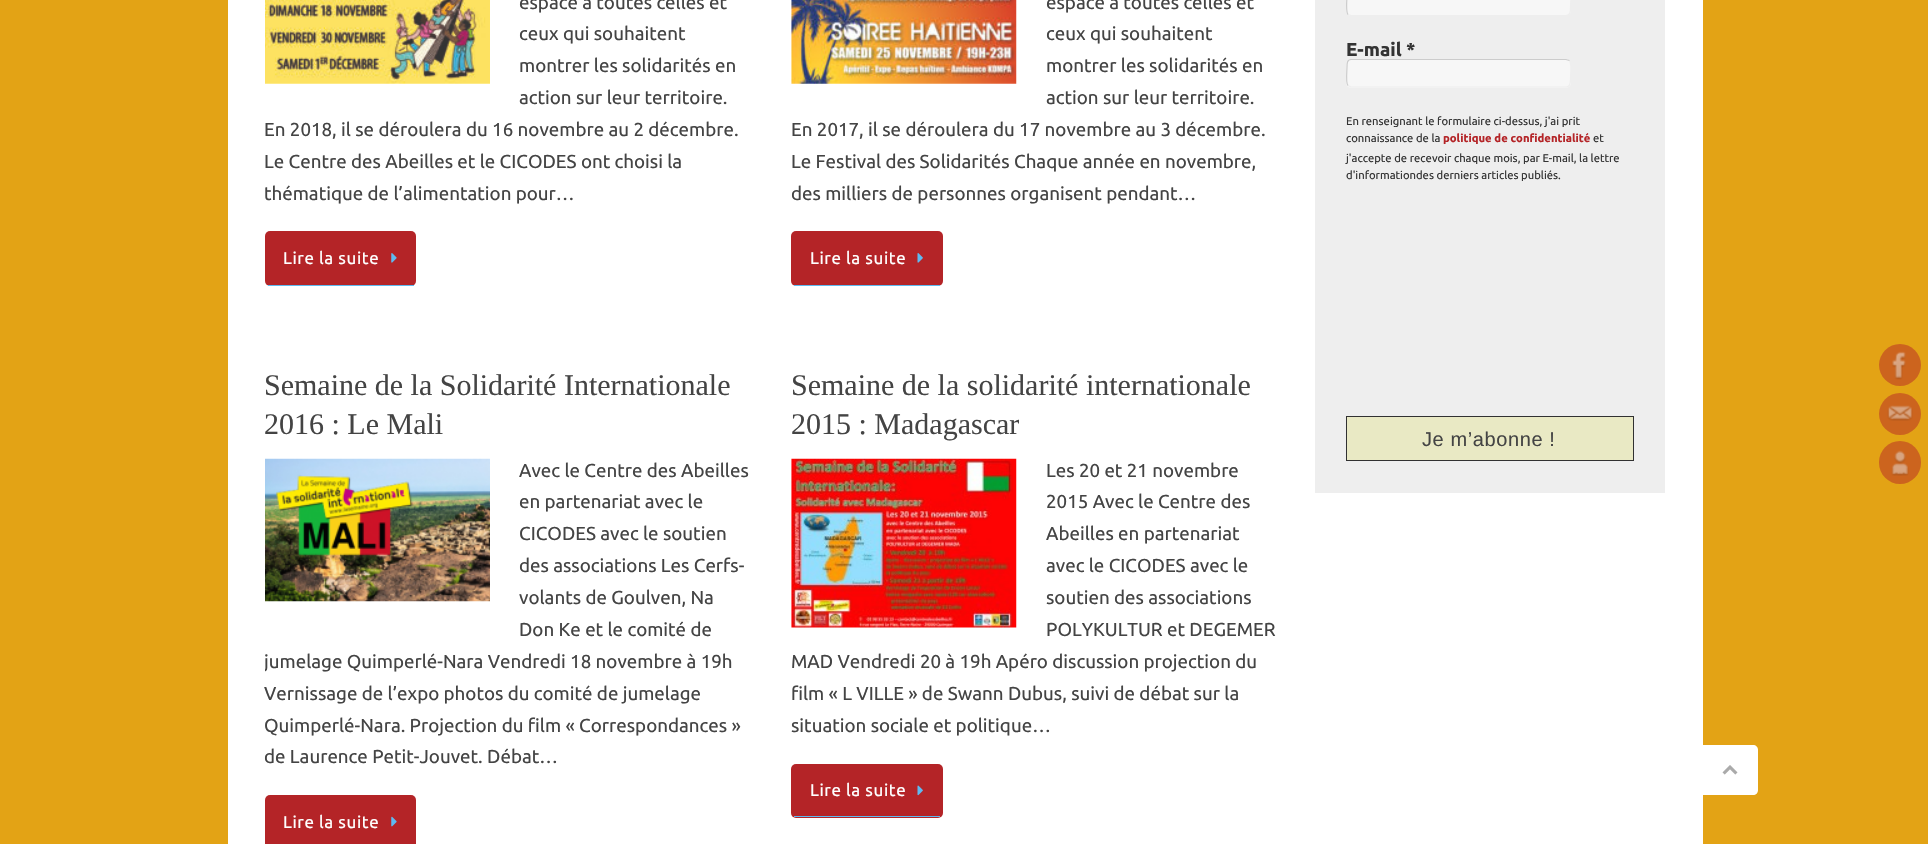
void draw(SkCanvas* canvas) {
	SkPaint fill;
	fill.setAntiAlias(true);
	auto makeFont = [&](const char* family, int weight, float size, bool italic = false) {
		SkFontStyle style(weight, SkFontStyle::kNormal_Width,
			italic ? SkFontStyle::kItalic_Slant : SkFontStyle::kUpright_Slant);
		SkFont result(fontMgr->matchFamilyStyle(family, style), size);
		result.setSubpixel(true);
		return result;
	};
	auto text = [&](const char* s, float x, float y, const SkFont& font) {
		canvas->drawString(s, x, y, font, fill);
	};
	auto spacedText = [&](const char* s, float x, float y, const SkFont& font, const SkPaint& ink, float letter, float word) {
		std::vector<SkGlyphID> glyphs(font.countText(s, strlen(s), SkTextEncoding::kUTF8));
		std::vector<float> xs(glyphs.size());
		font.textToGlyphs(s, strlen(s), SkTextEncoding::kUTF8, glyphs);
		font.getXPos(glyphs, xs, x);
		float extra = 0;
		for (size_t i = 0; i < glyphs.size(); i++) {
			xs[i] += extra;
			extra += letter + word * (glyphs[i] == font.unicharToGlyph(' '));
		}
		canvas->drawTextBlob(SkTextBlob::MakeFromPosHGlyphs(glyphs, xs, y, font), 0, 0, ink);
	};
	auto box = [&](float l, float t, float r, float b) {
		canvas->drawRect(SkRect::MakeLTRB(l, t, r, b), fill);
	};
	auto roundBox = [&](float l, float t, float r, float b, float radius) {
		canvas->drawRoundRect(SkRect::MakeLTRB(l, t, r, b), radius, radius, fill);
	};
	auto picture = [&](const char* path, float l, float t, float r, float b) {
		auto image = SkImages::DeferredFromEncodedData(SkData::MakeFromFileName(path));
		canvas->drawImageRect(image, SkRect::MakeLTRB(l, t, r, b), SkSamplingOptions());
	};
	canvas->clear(0xFFE3A315);
	fill.setColor(0xFFFFFFFF);
	box(228, 0, 1703, 844);
	picture("image0.png", 265, 0, 490, 84);
	fill.setColor(0xFFB42427);
	roundBox(265, 231, 416, 286, 5);
	fill.setColor(0xFF5EBAF1);
	box(268, 285, 414, 286);
	picture("image1.png", 391, 253, 397, 263);
	picture("image2.png", 791, 0, 1017, 84);
	fill.setColor(0xFFB42427);
	roundBox(791, 231, 943, 286, 5);
	fill.setColor(0xFF5EBAF1);
	box(794, 285, 940, 286);
	picture("image3.png", 917, 253, 923, 263);
	picture("image4.png", 265, 458, 490, 602);
	fill.setColor(0xFFB42427);
	roundBox(265, 795, 416, 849, 5);
	picture("image5.png", 391, 816, 397, 827);
	picture("image6.png", 791, 458, 1017, 628);
	roundBox(791, 764, 943, 818, 5);
	fill.setColor(0xFF5EBAF1);
	box(794, 816, 940, 817);
	picture("image7.png", 917, 785, 923, 796);
	fill.setColor(0xFFEEEEEE);
	box(1315, 0, 1665, 493);
	fill.setColor(0xFFF7F7F7);
	roundBox(1346, -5, 1571, 16, 5);
	fill.setStyle(SkPaint::kStroke_Style);
	fill.setStrokeWidth(1.2f);
	fill.setColor(0xFFEEEEEE);
	canvas->drawPath(SkPathBuilder().moveTo(1569.5f, -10.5f).cubicTo(1572, -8, 1570.5f, 4.5f, 1570.5f, 8).cubicTo(1570.5f, 11.5f, 1570.5f, 15.5f, 1566, 15.5f).lineTo(1351, 15.5f).lineTo(1348, 14.5f).detach(), fill);
	fill.setColor(0xFFCCCCCC);
	canvas->drawPath(SkPathBuilder().moveTo(1348, 14.5f).cubicTo(1345.5f, 11.5f, 1347, -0.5f, 1347, -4.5f).cubicTo(1347, -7.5f, 1347, -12, 1351, -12).lineTo(1566, -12).lineTo(1569.5f, -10.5f).detach(), fill);
	fill.setStyle(SkPaint::kFill_Style);
	fill.setColor(0xFFF7F7F7);
	roundBox(1346, 59, 1571, 88, 5);
	fill.setStyle(SkPaint::kStroke_Style);
	fill.setColor(0xFFEEEEEE);
	canvas->drawPath(SkPathBuilder().moveTo(1569.5f, 60.5f).cubicTo(1572, 63.5f, 1570.5f, 75.5f, 1570.5f, 79.5f).cubicTo(1570.5f, 82.5f, 1570.5f, 87, 1566, 87).lineTo(1351, 87).lineTo(1348, 85.5f).detach(), fill);
	fill.setColor(0xFFCCCCCC);
	canvas->drawPath(SkPathBuilder().moveTo(1348, 85.5f).cubicTo(1345.5f, 83, 1347, 70.5f, 1347, 67).cubicTo(1347, 63.5f, 1347, 59.5f, 1351, 59.5f).lineTo(1566, 59.5f).lineTo(1569.5f, 60.5f).detach(), fill);
	fill.setStyle(SkPaint::kFill_Style);
	fill.setColor(0xFFE9E9C4);
	canvas->drawRect(SkRect::MakeLTRB(1346.5f, 416.5f, 1633.5f, 460.5f), fill);
	fill.setStyle(SkPaint::kStroke_Style);
	fill.setStrokeWidth(1);
	fill.setColor(0xFF313131);
	canvas->drawRect(SkRect::MakeLTRB(1346.5f, 416.5f, 1633.5f, 460.5f), fill);
	fill.setStyle(SkPaint::kFill_Style);
	fill.setColor(0xFFFFFFFF);
	canvas->drawPath(SkPathBuilder().moveTo(1703, 745).lineTo(1753, 745).cubicTo(1756, 745, 1758, 747, 1758, 750).lineTo(1758, 790).cubicTo(1758, 793, 1756, 795, 1753, 795).lineTo(1703, 795).close().detach(), fill);
	picture("image8.png", 1722, 765, 1738, 775);
	fill.setColor(0xFFCC641E);
	canvas->drawCircle(1900, 365, 21, fill);
	picture("image9.png", 1892, 351, 1906, 380);
	canvas->drawCircle(1900, 414, 21, fill);
	picture("image10.png", 1887, 405, 1913, 421);
	roundBox(1879, 441, 1921, 484, 21);
	picture("image11.png", 1891, 450, 1909, 476);
	auto font1 = makeFont("Ubuntu", 400, 18.75f);
	fill.setColor(0xFF444444);
	text("espace à toutes celles et", 519, 9, font1);
	text("ceux qui souhaitent", 519, 40, font1);
	text("montrer les solidarités en", 519, 72, font1);
	text("action sur leur territoire.", 519, 104, font1);
	text("En 2018, il se déroulera du 16 novembre au 2 décembre.", 264, 136, font1);
	text("Le Centre des Abeilles et le CICODES ont choisi la", 264, 168, font1);
	text("thématique de l’alimentation pour…", 264, 200, font1);
	auto font2 = makeFont("Ubuntu", 400, 17);
	fill.setColor(0xFFFFFFFF);
	spacedText("Lire la suite", 283, 264, font2, fill, 0.6f, 0);
	fill.setColor(0xFF444444);
	text("espace à toutes celles et", 1046, 9, font1);
	text("ceux qui souhaitent", 1046, 40, font1);
	text("montrer les solidarités en", 1046, 72, font1);
	text("action sur leur territoire.", 1046, 104, font1);
	text("En 2017, il se déroulera du 17 novembre au 3 décembre.", 791, 136, font1);
	text("Le Festival des Solidarités Chaque année en novembre,", 791, 168, font1);
	text("des milliers de personnes organisent pendant…", 791, 200, font1);
	fill.setColor(0xFFFFFFFF);
	spacedText("Lire la suite", 810, 264, font2, fill, 0.6f, 0);
	auto font3 = makeFont("Liberation Serif", 400, 30);
	fill.setColor(0xFF444444);
	text("Semaine de la Solidarité Internationale", 264, 395, font3);
	text("2016 : Le Mali", 264, 434, font3);
	text("Avec le Centre des Abeilles", 519, 477, font1);
	text("en partenariat avec le", 519, 508, font1);
	text("CICODES avec le soutien", 519, 540, font1);
	text("des associations Les Cerfs-", 519, 572, font1);
	text("volants de Goulven, Na", 519, 604, font1);
	text("Don Ke et le comité de", 519, 636, font1);
	canvas->save();
	canvas->clipRect(SkRect::MakeLTRB(265, 366, 750, 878));
	text("jumelage Quimperlé-Nara Vendredi 18 novembre à 19h", 264, 668, font1);
	canvas->restore();
	text("Vernissage de l’expo photos du comité de jumelage", 264, 700, font1);
	text("Quimperlé-Nara. Projection du film « Correspondances »", 264, 732, font1);
	text("de Laurence Petit-Jouvet. Débat…", 264, 763, font1);
	fill.setColor(0xFFFFFFFF);
	spacedText("Lire la suite", 283, 828, font2, fill, 0.6f, 0);
	fill.setColor(0xFF444444);
	text("Semaine de la solidarité internationale", 791, 395, font3);
	text("2015 : Madagascar", 791, 434, font3);
	text("Les 20 et 21 novembre", 1046, 477, font1);
	text("2015 Avec le Centre des", 1046, 508, font1);
	text("Abeilles en partenariat", 1046, 540, font1);
	text("avec le CICODES avec le", 1046, 572, font1);
	text("soutien des associations", 1046, 604, font1);
	text("POLYKULTUR et DEGEMER", 1046, 636, font1);
	text("MAD Vendredi 20 à 19h Apéro discussion projection du", 791, 668, font1);
	text("film « L VILLE » de Swann Dubus, suivi de débat sur la", 791, 700, font1);
	text("situation sociale et politique…", 791, 732, font1);
	fill.setColor(0xFFFFFFFF);
	spacedText("Lire la suite", 810, 796, font2, fill, 0.6f, 0);
	auto font4 = makeFont("Ubuntu", 700, 18.75f);
	fill.setColor(0xFF333333);
	text("E-mail *", 1346, 56, font4);
	auto font5 = makeFont("Ubuntu", 400, 11.25f);
	text("En renseignant le formulaire ci-dessus, j'ai prit", 1346, 125, font5);
	text("connaissance de la", 1346, 142, font5);
	auto font6 = makeFont("Ubuntu", 700, 11.25f);
	fill.setColor(0xFFB42427);
	text("politique de confidentialité", 1443, 142, font6);
	fill.setColor(0xFF333333);
	text("et", 1593, 142, font5);
	text("j'accepte de recevoir chaque mois, par E-mail, la lettre", 1346, 162, font5);
	text("d'informationdes derniers articles publiés.", 1346, 179, font5);
	auto font7 = makeFont("Liberation Sans", 400, 20);
	fill.setColor(0xFF444444);
	spacedText("Je m’abonne !", 1422, 446, font7, fill, 0.6f, 0);
}
